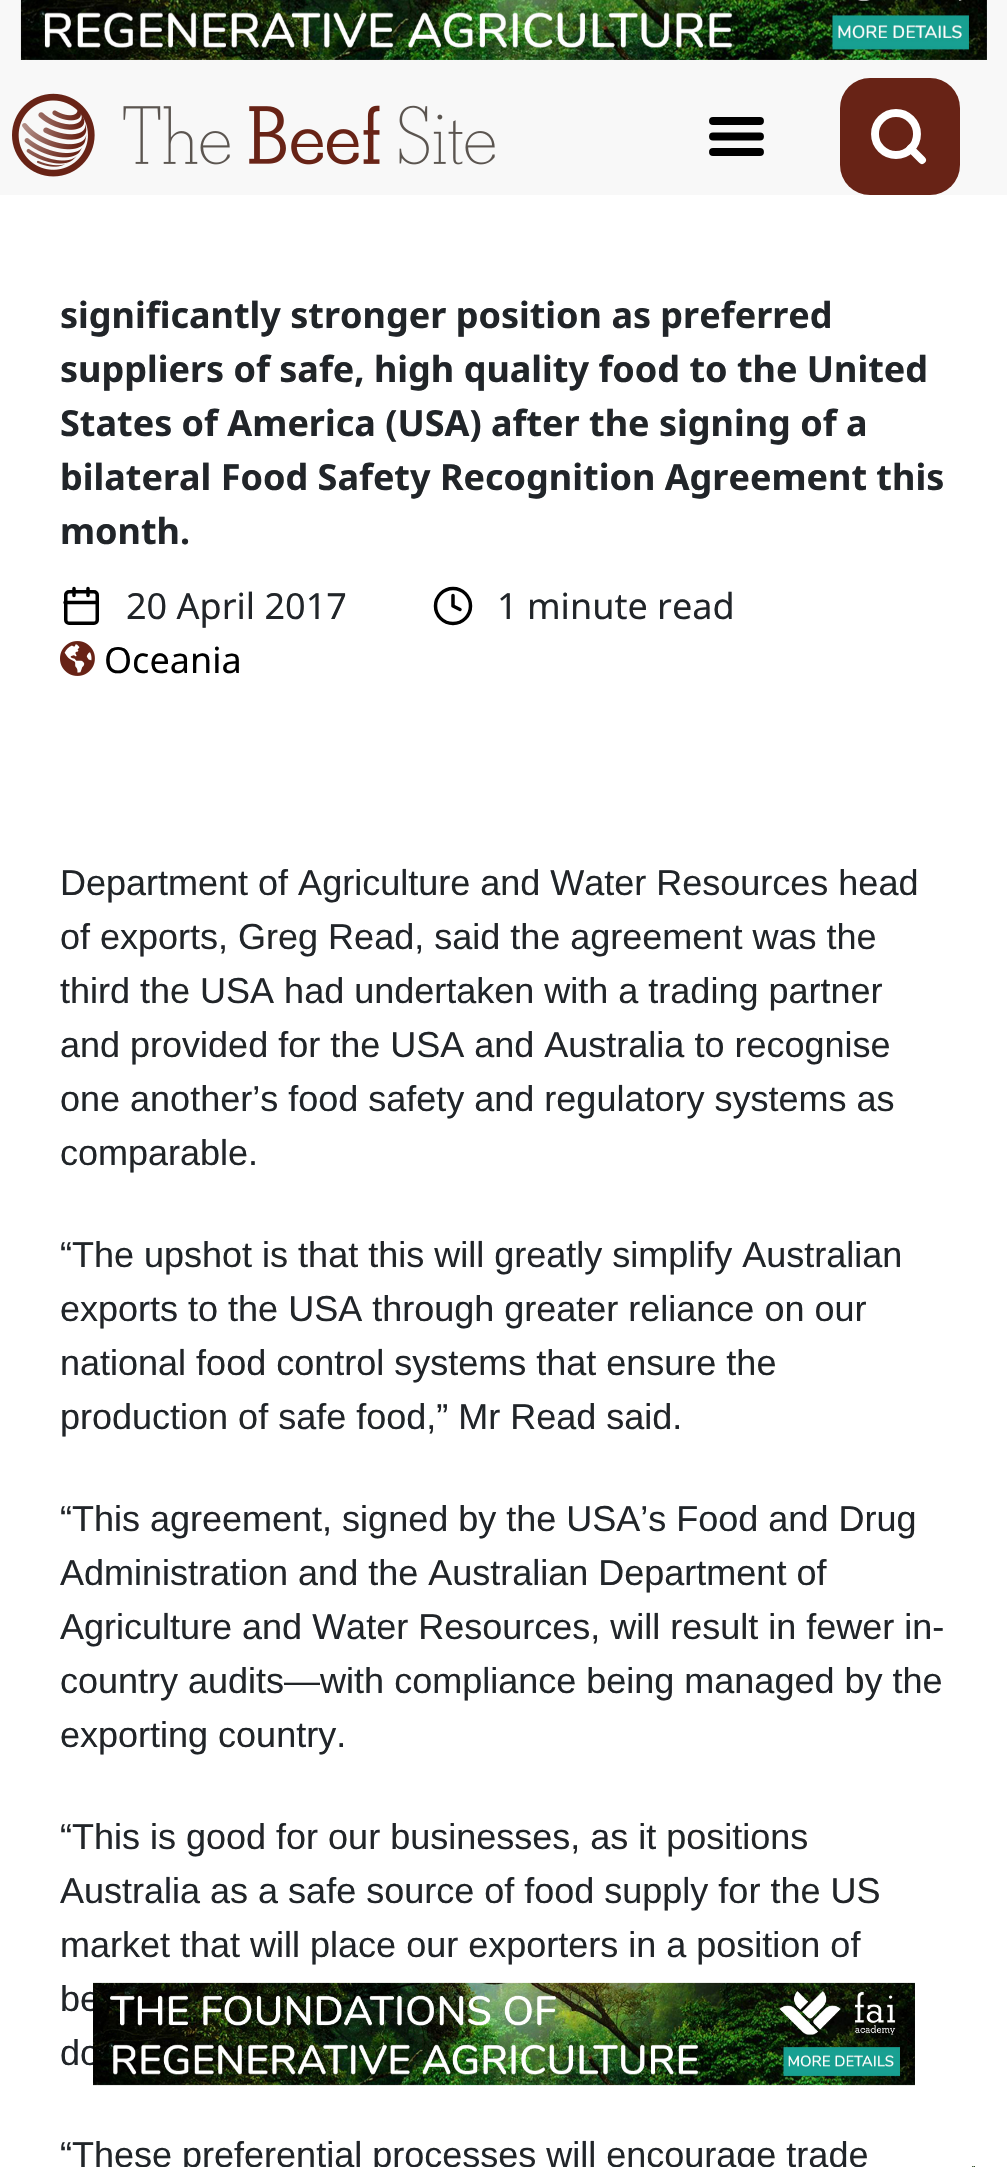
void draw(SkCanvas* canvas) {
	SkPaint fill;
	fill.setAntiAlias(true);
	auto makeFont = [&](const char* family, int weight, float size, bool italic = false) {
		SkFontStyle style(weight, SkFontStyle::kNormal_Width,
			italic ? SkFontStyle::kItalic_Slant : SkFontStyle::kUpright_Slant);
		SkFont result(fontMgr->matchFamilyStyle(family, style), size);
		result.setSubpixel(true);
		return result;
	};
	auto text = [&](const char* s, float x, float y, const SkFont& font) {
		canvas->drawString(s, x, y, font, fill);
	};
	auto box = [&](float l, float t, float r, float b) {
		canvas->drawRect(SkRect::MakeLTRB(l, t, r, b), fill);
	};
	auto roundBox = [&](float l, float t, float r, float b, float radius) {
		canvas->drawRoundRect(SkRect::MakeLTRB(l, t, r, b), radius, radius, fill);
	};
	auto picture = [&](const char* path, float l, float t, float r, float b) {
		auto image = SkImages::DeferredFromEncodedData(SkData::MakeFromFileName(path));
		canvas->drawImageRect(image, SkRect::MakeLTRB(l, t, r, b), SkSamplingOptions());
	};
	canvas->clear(0xFFFFFFFF);
	fill.setColor(0xFFF8F8F8);
	box(0, 0, 1007, 195);
	picture("image0.png", 20, 0, 987, 60);
	picture("image1.png", 12, 93, 495, 177);
	fill.setStyle(SkPaint::kStroke_Style);
	fill.setStrokeWidth(7.9f);
	fill.setStrokeCap(SkPaint::kRound_Cap);
	fill.setStrokeJoin(SkPaint::kRound_Join);
	fill.setColor(0xFF000000);
	canvas->drawPath(SkPathBuilder().moveTo(713, 136.5f).lineTo(760, 136.5f).moveTo(713, 121).lineTo(760, 121).moveTo(713, 152).lineTo(760, 152).detach(), fill);
	fill.setStyle(SkPaint::kFill_Style);
	fill.setColor(0xFF682316);
	roundBox(840, 78, 960, 195, 30);
	fill.setStyle(SkPaint::kStroke_Style);
	fill.setStrokeCap(SkPaint::kButt_Cap);
	fill.setStrokeJoin(SkPaint::kMiter_Join);
	fill.setColor(0xFFFFFFFF);
	canvas->drawCircle(896, 134, 21, fill);
	fill.setStrokeCap(SkPaint::kRound_Cap);
	fill.setStrokeJoin(SkPaint::kRound_Join);
	canvas->drawPath(SkPathBuilder().moveTo(922, 160).lineTo(910.5f, 148.5f).detach(), fill);
	fill.setStrokeWidth(3.5f);
	fill.setStrokeCap(SkPaint::kButt_Cap);
	fill.setStrokeJoin(SkPaint::kMiter_Join);
	fill.setColor(0xFF000000);
	canvas->drawRoundRect(SkRect::MakeLTRB(65.75f, 591.75f, 97.25f, 623.25f), 3.25f, 3.25f, fill);
	fill.setStrokeCap(SkPaint::kRound_Cap);
	fill.setStrokeJoin(SkPaint::kRound_Join);
	canvas->drawPath(SkPathBuilder().moveTo(88, 588.5f).lineTo(88, 595.5f).moveTo(74, 588.5f).lineTo(74, 595.5f).moveTo(65, 602.5f).lineTo(97, 602.5f).detach(), fill);
	fill.setStrokeCap(SkPaint::kButt_Cap);
	fill.setStrokeJoin(SkPaint::kMiter_Join);
	canvas->drawCircle(453, 606, 17.5f, fill);
	fill.setStrokeCap(SkPaint::kRound_Cap);
	fill.setStrokeJoin(SkPaint::kRound_Join);
	canvas->drawPath(SkPathBuilder().moveTo(453, 595.5f).lineTo(453, 606).lineTo(460, 609.5f).detach(), fill);
	picture("image2.png", 60, 641, 95, 676);
	picture("image4.png", 972, 2166, 975, 2167);
	auto font1 = makeFont("Noto Sans", 700, 36);
	fill.setStyle(SkPaint::kFill_Style);
	fill.setColor(0xFF212529);
	text("significantly stronger position as preferred", 60, 328, font1);
	text("suppliers of safe, high quality food to the United", 60, 382, font1);
	text("States of America (USA) after the signing of a", 60, 436, font1);
	text("bilateral Food Safety Recognition Agreement this", 60, 490, font1);
	text("month.", 60, 544, font1);
	auto font2 = makeFont("Noto Sans", 400, 36);
	text("20 April 2017", 126, 619, font2);
	text("1 minute read", 497, 619, font2);
	fill.setColor(0xFF000000);
	text("Oceania", 104, 673, font2);
	auto font3 = makeFont("Liberation Sans", 400, 36);
	fill.setColor(0xFF212529);
	text("Department of Agriculture and Water Resources head", 60, 895, font3);
	text("of exports, Greg Read, said the agreement was the", 60, 949, font3);
	text("third the USA had undertaken with a trading partner", 60, 1003, font3);
	text("and provided for the USA and Australia to recognise", 60, 1057, font3);
	text("one another’s food safety and regulatory systems as", 60, 1111, font3);
	text("comparable.", 60, 1165, font3);
	text("“The upshot is that this will greatly simplify Australian", 60, 1267, font3);
	text("exports to the USA through greater reliance on our", 60, 1321, font3);
	text("national food control systems that ensure the", 60, 1375, font3);
	text("production of safe food,” Mr Read said.", 60, 1429, font3);
	text("“This agreement, signed by the USA’s Food and Drug", 60, 1531, font3);
	text("Administration and the Australian Department of", 60, 1585, font3);
	text("Agriculture and Water Resources, will result in fewer in-", 60, 1639, font3);
	text("country audits—with compliance being managed by the", 60, 1693, font3);
	text("exporting country.", 60, 1747, font3);
	text("“This is good for our businesses, as it positions", 60, 1849, font3);
	text("Australia as a safe source of food supply for the US", 60, 1903, font3);
	text("market that will place our exporters in a position of", 60, 1957, font3);
	text("be", 60, 2011, font3);
	text("do", 60, 2065, font3);
	text("“These preferential processes will encourage trade", 60, 2167, font3);
	picture("image3.png", 93, 1982, 915, 2086);
}
